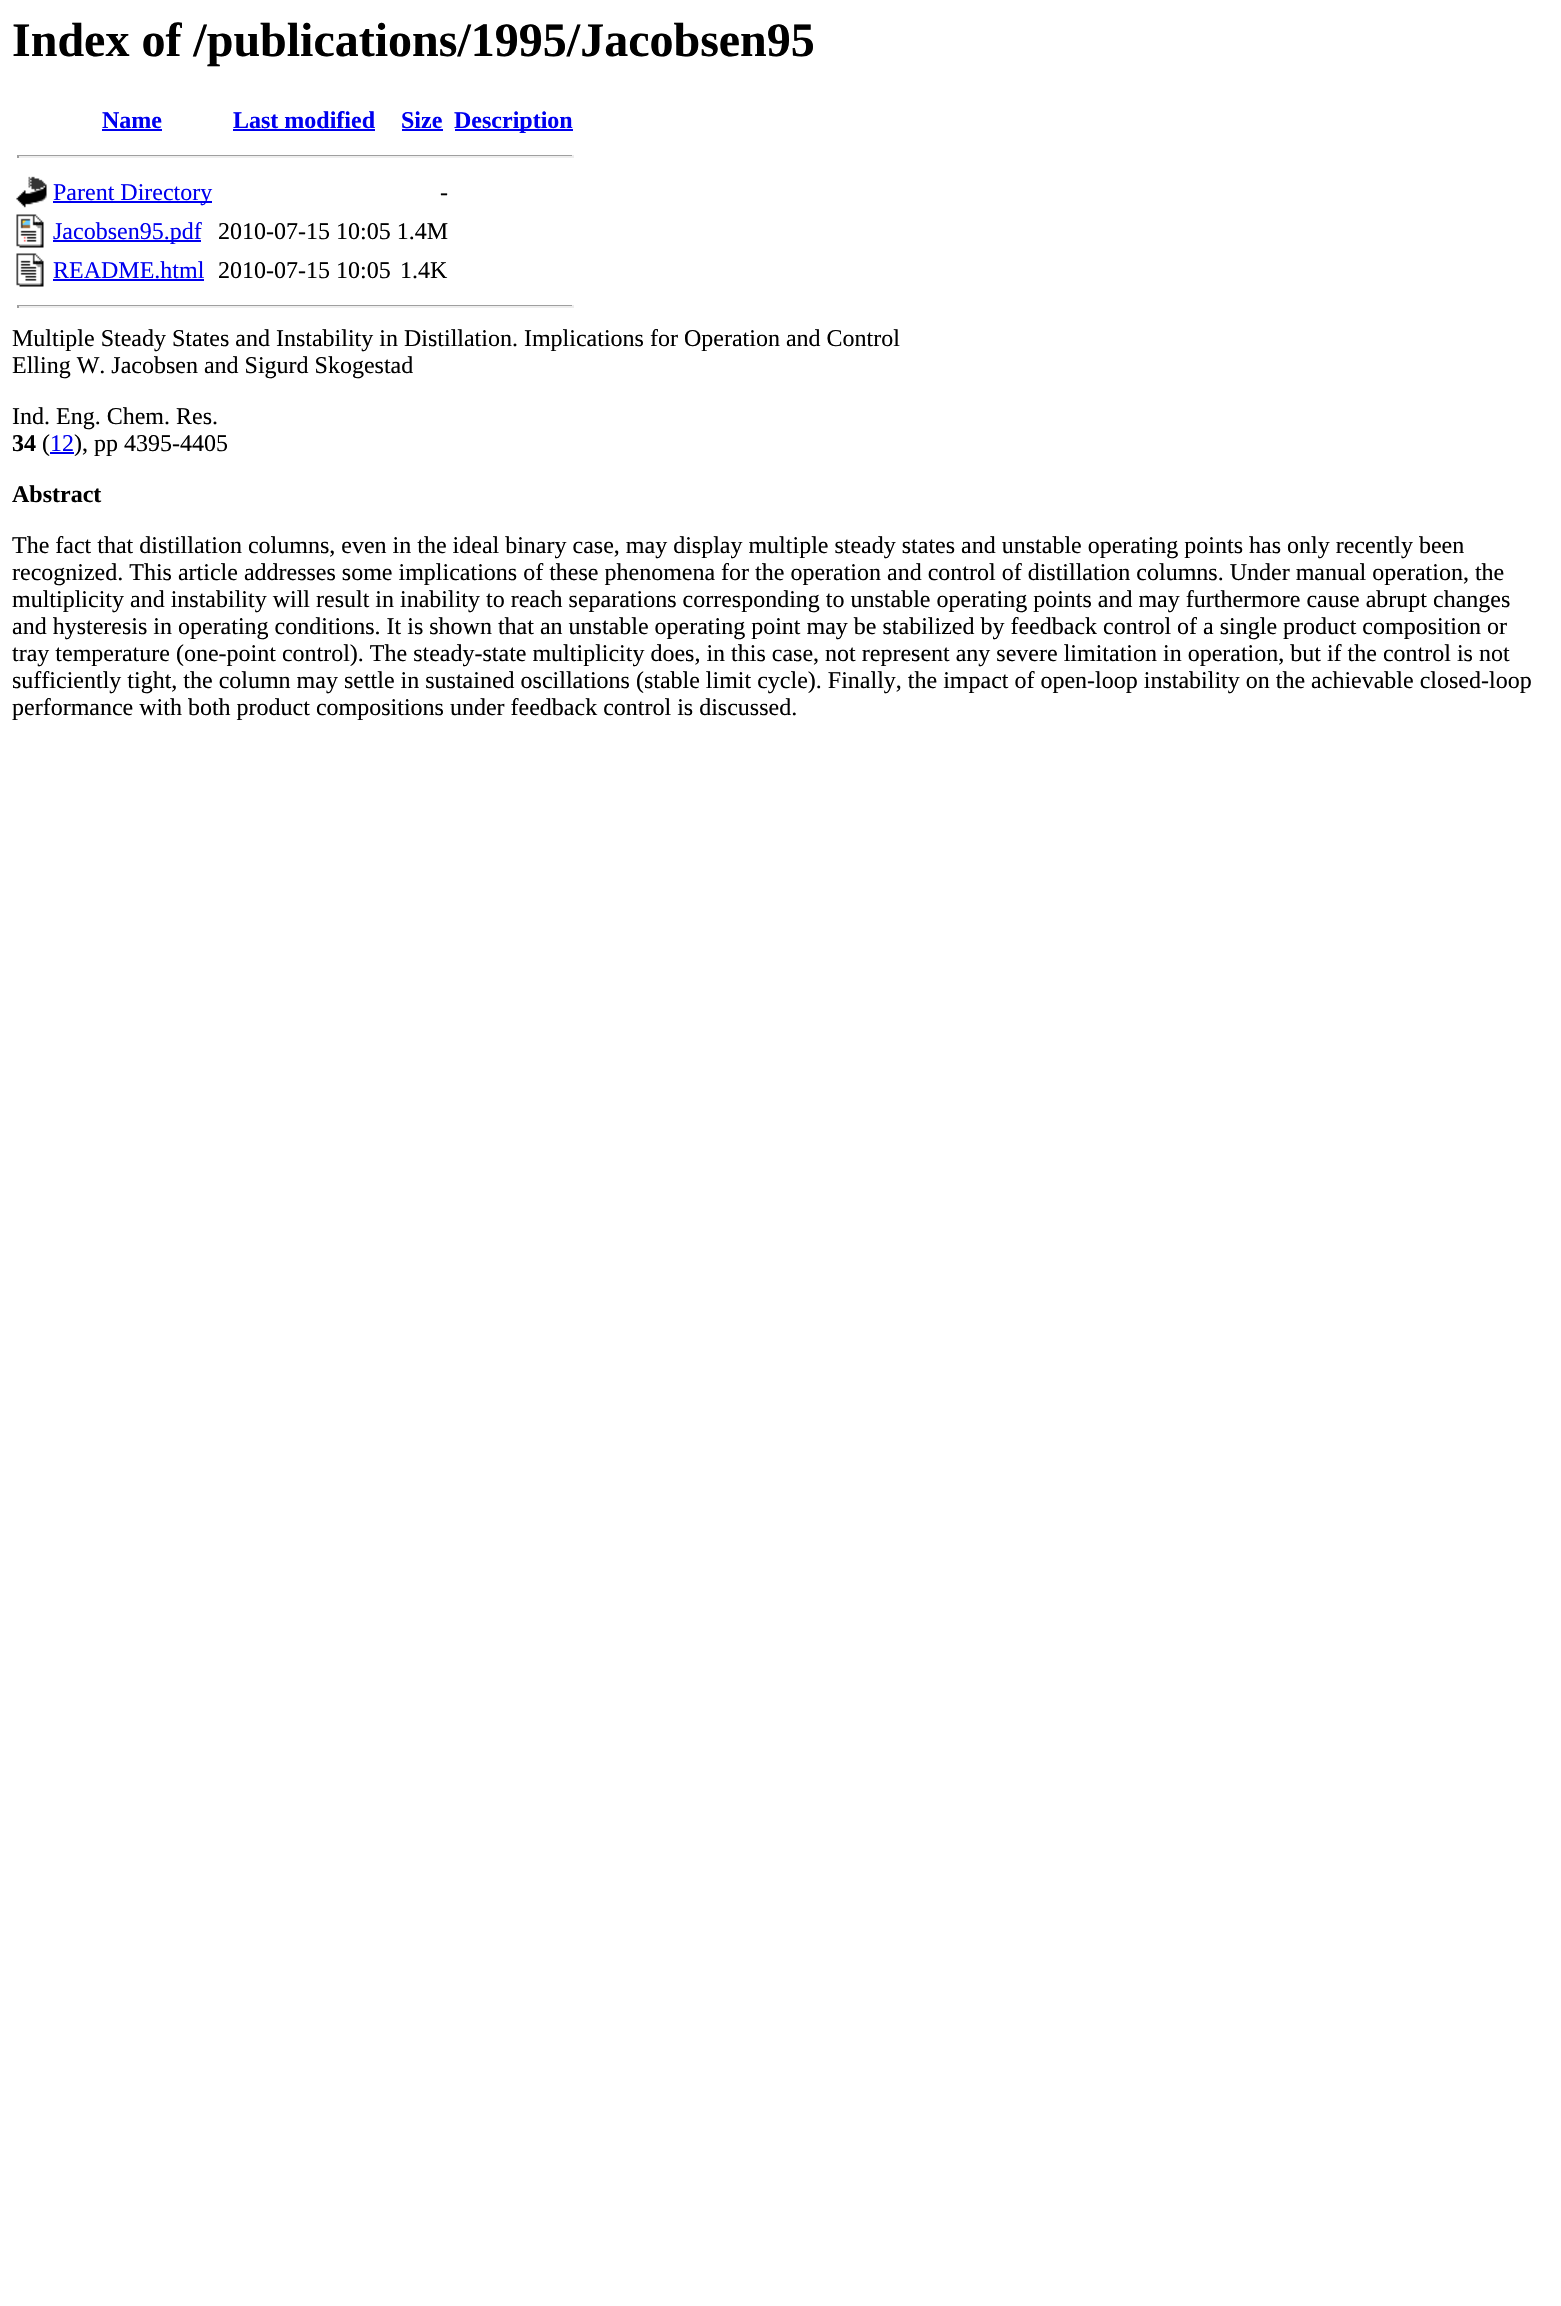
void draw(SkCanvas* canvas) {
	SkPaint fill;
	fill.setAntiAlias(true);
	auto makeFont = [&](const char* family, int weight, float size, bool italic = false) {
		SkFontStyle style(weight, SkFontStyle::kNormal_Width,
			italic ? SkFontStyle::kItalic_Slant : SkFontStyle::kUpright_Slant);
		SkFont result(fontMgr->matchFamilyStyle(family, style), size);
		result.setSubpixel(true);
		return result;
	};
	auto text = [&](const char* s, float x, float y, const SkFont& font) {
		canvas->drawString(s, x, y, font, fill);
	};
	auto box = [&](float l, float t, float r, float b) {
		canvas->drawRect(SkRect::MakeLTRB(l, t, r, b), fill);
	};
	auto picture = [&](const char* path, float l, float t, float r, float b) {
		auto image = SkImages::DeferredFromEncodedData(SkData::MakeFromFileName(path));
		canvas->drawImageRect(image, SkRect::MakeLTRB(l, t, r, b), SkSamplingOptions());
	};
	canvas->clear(0xFFFFFFFF);
	fill.setColor(0xFF0000EE);
	box(102, 129, 162, 131);
	box(233, 129, 375, 131);
	box(402, 129, 443, 131);
	box(455, 129, 573, 131);
	fill.setColor(0xFF9F9F9F);
	box(17, 155, 573, 156);
	fill.setColor(0xFFEEEEEE);
	box(572, 155, 574, 158);
	box(17, 156, 573, 158);
	fill.setColor(0xFF9F9F9F);
	box(17, 155, 19, 158);
	picture("image0.png", 16, 176, 47, 208);
	fill.setColor(0xFF0000EE);
	box(53, 201, 212, 203);
	picture("image1.png", 16, 214, 44, 248);
	box(53, 240, 201, 242);
	picture("image2.png", 16, 253, 44, 287);
	box(53, 279, 204, 281);
	fill.setColor(0xFF9F9F9F);
	box(17, 305, 573, 306);
	fill.setColor(0xFFEEEEEE);
	box(572, 305, 574, 308);
	box(17, 306, 573, 308);
	fill.setColor(0xFF9F9F9F);
	box(17, 305, 19, 308);
	fill.setColor(0xFF0000EE);
	box(50, 452, 74, 454);
	auto font1 = makeFont("Liberation Serif", 700, 48);
	fill.setColor(0xFF000000);
	text("Index of /publications/1995/Jacobsen95", 12, 56, font1);
	auto font2 = makeFont("Liberation Serif", 700, 24);
	fill.setColor(0xFF0000EE);
	text("Name", 102, 128, font2);
	text("Last modified", 233, 128, font2);
	text("Size", 401, 128, font2);
	text("Description", 454, 128, font2);
	auto font3 = makeFont("Liberation Serif", 400, 24);
	text("Parent Directory", 53, 200, font3);
	fill.setColor(0xFF000000);
	text("-", 440, 200, font3);
	fill.setColor(0xFF0000EE);
	text("Jacobsen95.pdf", 53, 239, font3);
	fill.setColor(0xFF000000);
	text("2010-07-15 10:05 1.4M", 218, 239, font3);
	fill.setColor(0xFF0000EE);
	text("README.html", 53, 278, font3);
	fill.setColor(0xFF000000);
	text("2010-07-15 10:05", 218, 278, font3);
	text("1.4K", 400, 278, font3);
	text("Multiple Steady States and Instability in Distillation. Implications for Operation and Control", 12, 346, font3);
	text("Elling W. Jacobsen and Sigurd Skogestad", 12, 373, font3);
	text("Ind. Eng. Chem. Res.", 12, 424, font3);
	text("34", 12, 451, font2);
	text("(", 42, 451, font3);
	fill.setColor(0xFF0000EE);
	text("12", 50, 451, font3);
	fill.setColor(0xFF000000);
	text("), pp 4395-4405", 74, 451, font3);
	text("Abstract", 12, 502, font2);
	text("The fact that distillation columns, even in the ideal binary case, may display multiple steady states and unstable operating points has only recently been", 12, 553, font3);
	text("recognized. This article addresses some implications of these phenomena for the operation and control of distillation columns. Under manual operation, the", 12, 580, font3);
	text("multiplicity and instability will result in inability to reach separations corresponding to unstable operating points and may furthermore cause abrupt changes", 12, 607, font3);
	text("and hysteresis in operating conditions. It is shown that an unstable operating point may be stabilized by feedback control of a single product composition or", 12, 634, font3);
	text("tray temperature (one-point control). The steady-state multiplicity does, in this case, not represent any severe limitation in operation, but if the control is not", 12, 661, font3);
	text("sufficiently tight, the column may settle in sustained oscillations (stable limit cycle). Finally, the impact of open-loop instability on the achievable closed-loop", 12, 688, font3);
	text("performance with both product compositions under feedback control is discussed.", 12, 715, font3);
}
